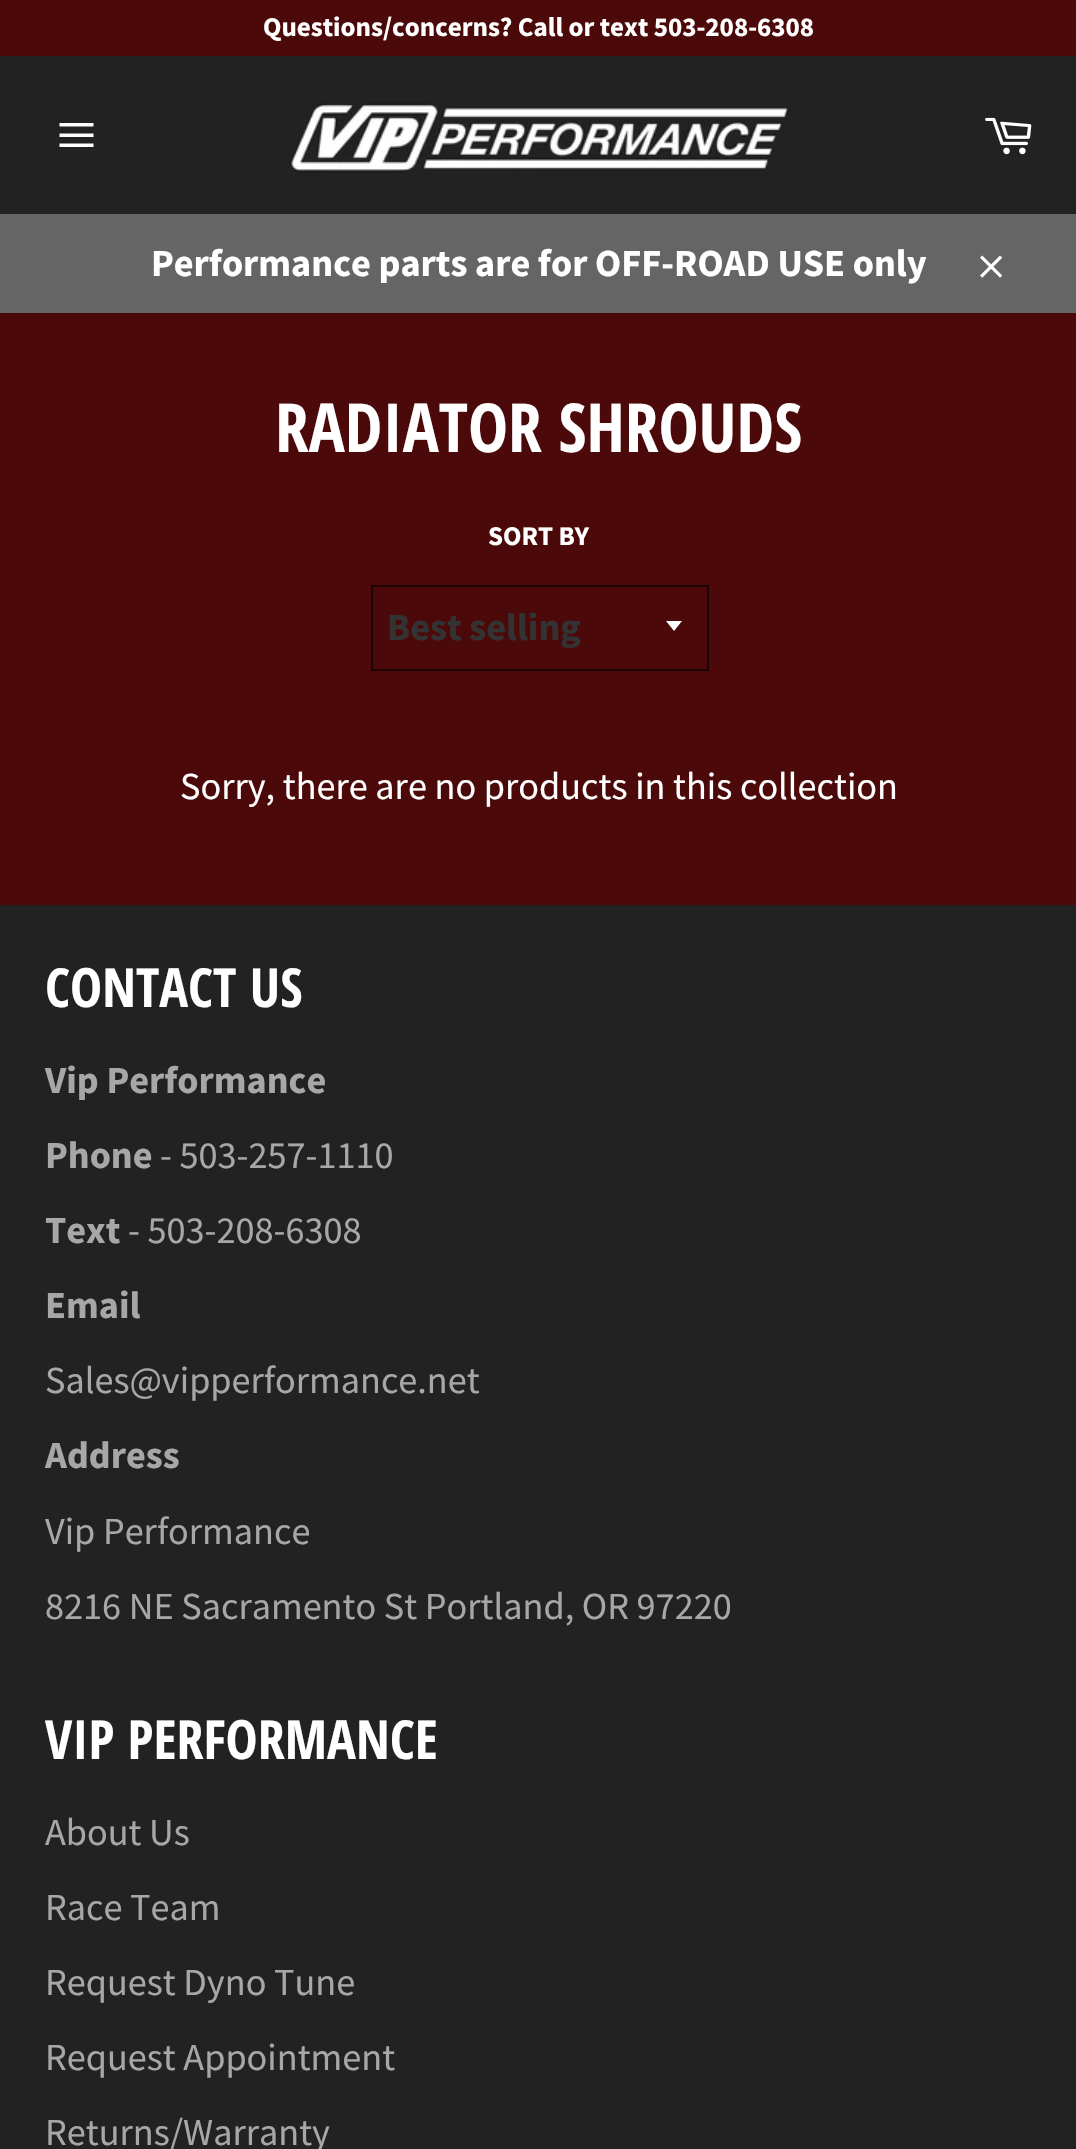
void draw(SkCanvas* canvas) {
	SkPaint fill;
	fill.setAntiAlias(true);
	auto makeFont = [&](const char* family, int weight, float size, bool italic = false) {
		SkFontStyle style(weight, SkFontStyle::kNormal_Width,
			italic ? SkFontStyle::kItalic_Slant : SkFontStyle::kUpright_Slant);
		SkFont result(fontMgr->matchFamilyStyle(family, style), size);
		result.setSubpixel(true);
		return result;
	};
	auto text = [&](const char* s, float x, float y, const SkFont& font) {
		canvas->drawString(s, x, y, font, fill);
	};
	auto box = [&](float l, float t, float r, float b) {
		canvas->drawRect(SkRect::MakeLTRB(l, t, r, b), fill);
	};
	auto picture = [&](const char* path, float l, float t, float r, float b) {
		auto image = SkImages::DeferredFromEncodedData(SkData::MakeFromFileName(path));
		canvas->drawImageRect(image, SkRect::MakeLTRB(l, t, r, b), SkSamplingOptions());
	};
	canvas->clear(0xFF4B0909);
	fill.setColor(0xFF222222);
	box(0, 56, 1076, 214);
	fill.setColor(0xFFFFFFFF);
	canvas->drawPath(SkPathBuilder().moveTo(59.5f, 133.5f).lineTo(93.5f, 133.5f).lineTo(93.5f, 137).lineTo(59.5f, 137).close().moveTo(59.5f, 123).lineTo(93.5f, 123).lineTo(93.5f, 126.5f).lineTo(59.5f, 126.5f).close().moveTo(59.5f, 143.5f).lineTo(93.5f, 143.5f).lineTo(93.5f, 147).lineTo(59.5f, 147).close().detach(), fill);
	picture("image0.png", 290, 103, 789, 173);
	picture("image1.png", 985, 117, 1032, 155);
	fill.setColor(0xFF666565);
	box(0, 214, 1076, 313);
	picture("image2.png", 980, 255, 1003, 278);
	fill.setColor(0xFFFFFFFF);
	canvas->drawPath(SkPathBuilder().moveTo(666, 621).lineTo(674, 631).lineTo(682, 621).close().detach(), fill);
	fill.setStyle(SkPaint::kStroke_Style);
	fill.setStrokeWidth(2);
	fill.setColor(0xFF1D0404);
	canvas->drawRect(SkRect::MakeLTRB(372, 586, 708, 670), fill);
	fill.setStyle(SkPaint::kFill_Style);
	fill.setColor(0xFF222222);
	box(0, 905, 1076, 2149);
	auto font1 = makeFont("Source Sans Pro", 700, 27);
	fill.setColor(0xFFFFFFFF);
	text("Questions/concerns? Call or text 503-208-6308", 263, 36, font1);
	auto font2 = makeFont("Source Sans Pro", 700, 38.25f);
	text("Performance parts are for OFF-ROAD USE only", 151, 276, font2);
	auto font3 = makeFont("Open Sans Condensed", 700, 67.5f);
	text("RADIATOR SHROUDS", 275, 452, font3);
	text("SORT BY", 488, 545, font1);
	fill.setColor(0xFF333333);
	text("Best selling", 387, 640, font2);
	auto font4 = makeFont("Source Sans Pro", 400, 38.25f);
	fill.setColor(0xFFFFFFFF);
	text("Sorry, there are no products in this collection", 180, 799, font4);
	auto font5 = makeFont("Open Sans Condensed", 700, 54);
	text("CONTACT US", 45, 1007, font5);
	fill.setColor(0xFFA7A7A7);
	text("Vip Performance", 45, 1093, font2);
	text("Phone", 45, 1168, font2);
	text("- 503-257-1110", 160, 1168, font4);
	text("Text", 45, 1243, font2);
	text("- 503-208-6308", 128, 1243, font4);
	text("Email", 45, 1318, font2);
	text("Sales@vipperformance.net", 45, 1393, font4);
	text("Address", 45, 1468, font2);
	text("Vip Performance", 45, 1544, font4);
	text("8216 NE Sacramento St Portland, OR 97220", 45, 1619, font4);
	fill.setColor(0xFFFFFFFF);
	text("VIP PERFORMANCE", 45, 1759, font5);
	fill.setColor(0xFFA7A7A7);
	text("About Us", 45, 1845, font4);
	text("Race Team", 45, 1920, font4);
	text("Request Dyno Tune", 45, 1995, font4);
	text("Request Appointment", 45, 2070, font4);
	text("Returns/Warranty", 45, 2145, font4);
}
